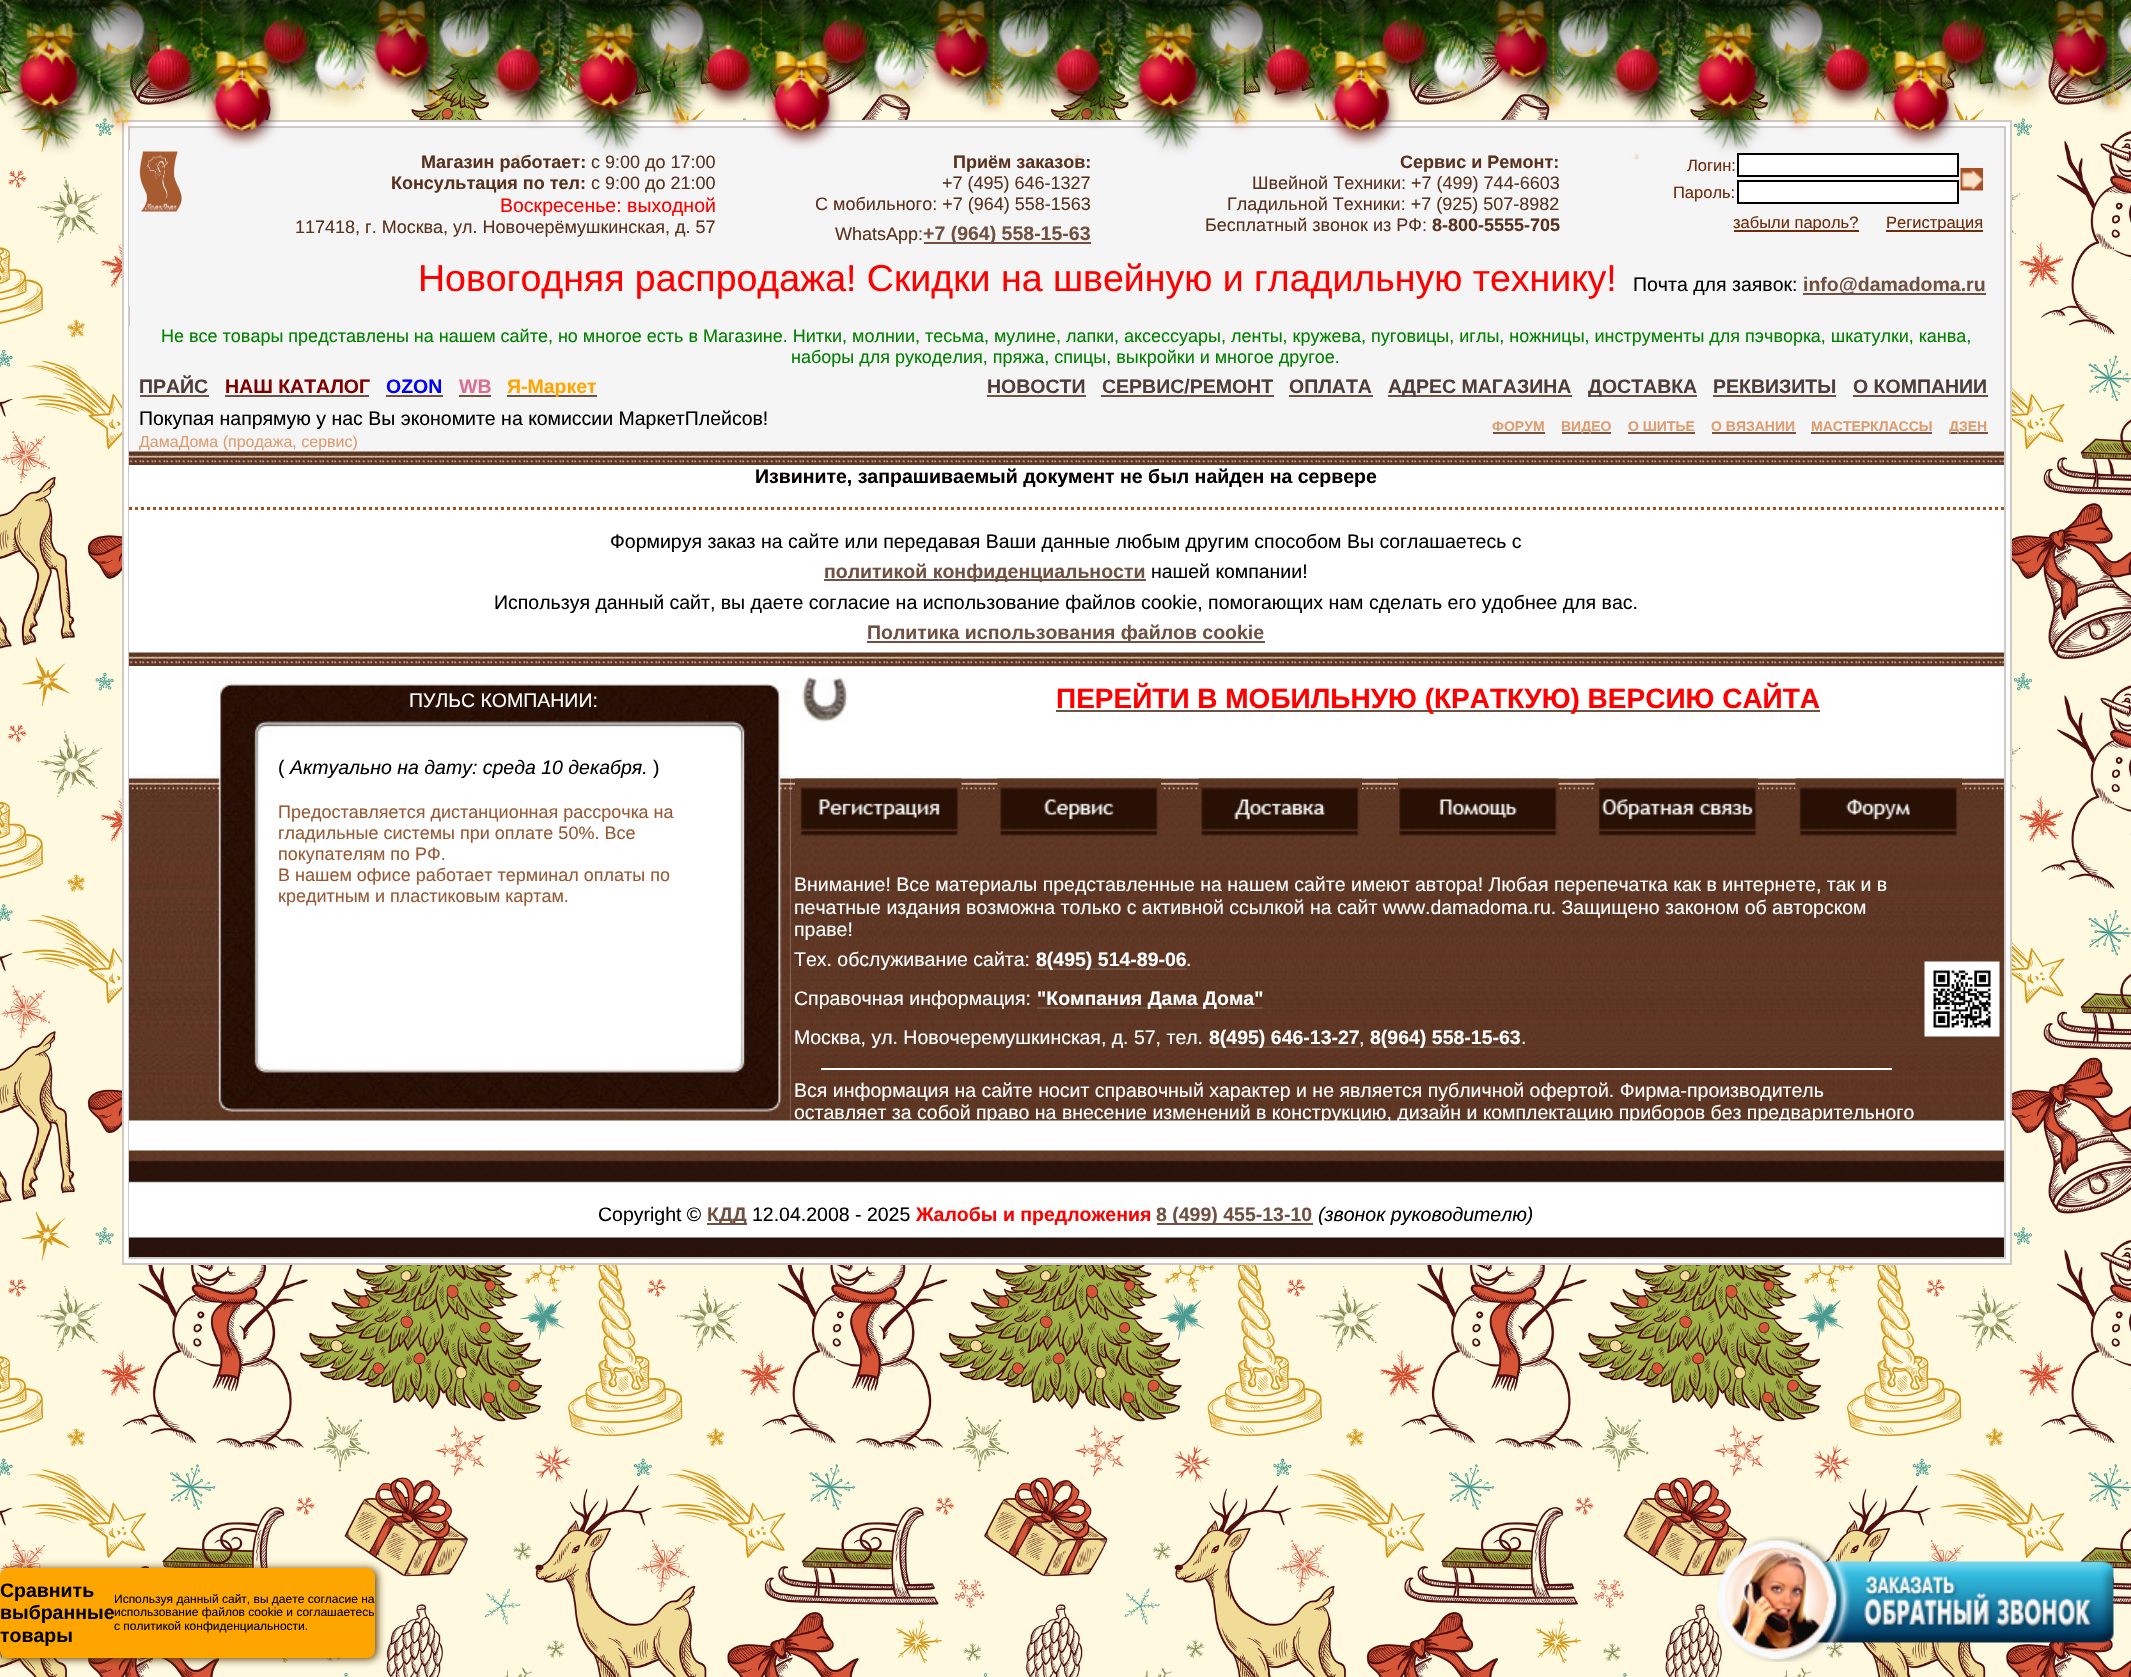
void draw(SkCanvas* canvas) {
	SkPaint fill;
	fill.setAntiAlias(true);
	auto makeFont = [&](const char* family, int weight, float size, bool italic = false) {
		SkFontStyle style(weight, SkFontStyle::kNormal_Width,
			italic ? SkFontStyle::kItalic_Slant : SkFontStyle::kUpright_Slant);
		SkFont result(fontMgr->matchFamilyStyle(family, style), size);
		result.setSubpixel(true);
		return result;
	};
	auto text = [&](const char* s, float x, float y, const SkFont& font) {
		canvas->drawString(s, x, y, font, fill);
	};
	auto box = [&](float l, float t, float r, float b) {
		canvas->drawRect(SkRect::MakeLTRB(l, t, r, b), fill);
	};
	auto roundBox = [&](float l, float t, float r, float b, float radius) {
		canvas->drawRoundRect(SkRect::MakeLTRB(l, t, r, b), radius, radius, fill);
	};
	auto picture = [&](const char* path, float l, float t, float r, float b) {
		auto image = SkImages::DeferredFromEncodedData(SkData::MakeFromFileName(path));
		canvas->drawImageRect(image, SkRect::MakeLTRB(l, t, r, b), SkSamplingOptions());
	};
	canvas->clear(0xFFFFFFFF);
	picture("image0.png", 0, 0, 2131, 1677);
	fill.setColor(0xFFFFFFFF);
	canvas->drawRect(SkRect::MakeLTRB(123, 121, 2011, 1264), fill);
	fill.setStyle(SkPaint::kStroke_Style);
	fill.setStrokeWidth(2);
	fill.setColor(0xFFCFCAC8);
	canvas->drawRect(SkRect::MakeLTRB(123, 121, 2011, 1264), fill);
	fill.setStyle(SkPaint::kFill_Style);
	fill.setColor(0xFFF6F5F5);
	box(130, 128, 2004, 326);
	fill.setStyle(SkPaint::kStroke_Style);
	fill.setColor(0xFFCFCAC8);
	canvas->drawRect(SkRect::MakeLTRB(129, 127, 2005, 1258), fill);
	fill.setStyle(SkPaint::kFill_Style);
	fill.setColor(0xFFF6F5F5);
	box(129, 150, 130, 306);
	picture("image60.png", 139, 151, 182, 212);
	fill.setColor(0xFF705141);
	box(924, 242, 1091, 244);
	fill.setColor(0xFFFFFFFF);
	canvas->drawRect(SkRect::MakeLTRB(1738, 154, 1958, 176), fill);
	fill.setStyle(SkPaint::kStroke_Style);
	fill.setColor(0xFF000000);
	canvas->drawRect(SkRect::MakeLTRB(1738, 154, 1958, 176), fill);
	fill.setStyle(SkPaint::kFill_Style);
	fill.setColor(0xFFFFFFFF);
	canvas->drawRect(SkRect::MakeLTRB(1738, 181, 1958, 203), fill);
	fill.setStyle(SkPaint::kStroke_Style);
	fill.setColor(0xFF000000);
	canvas->drawRect(SkRect::MakeLTRB(1738, 181, 1958, 203), fill);
	picture("image61.png", 1960, 168, 1983, 191);
	fill.setStyle(SkPaint::kFill_Style);
	fill.setColor(0xFF702C0A);
	box(1734, 230, 1859, 232);
	box(1886, 230, 1983, 232);
	fill.setColor(0xFF705141);
	box(1803, 293, 1986, 295);
	fill.setColor(0xFFFFFFFF);
	box(129, 465, 130, 1151);
	fill.setColor(0xFFF6F5F5);
	box(129, 326, 2004, 368);
	box(129, 368, 2004, 407);
	fill.setColor(0xFF705141);
	box(140, 395, 209, 397);
	box(225, 395, 369, 397);
	box(386, 395, 443, 397);
	box(459, 395, 491, 397);
	box(507, 395, 597, 397);
	box(987, 395, 1086, 397);
	box(1101, 395, 1274, 397);
	box(1289, 395, 1373, 397);
	box(1388, 395, 1572, 397);
	box(1589, 395, 1697, 397);
	box(1713, 395, 1836, 397);
	box(1853, 395, 1988, 397);
	fill.setColor(0xFFF6F5F5);
	box(129, 407, 2004, 452);
	fill.setColor(0xFF705141);
	box(1493, 432, 1545, 434);
	box(1562, 432, 1611, 434);
	box(1628, 432, 1695, 434);
	box(1712, 432, 1796, 434);
	box(1811, 432, 1932, 434);
	box(1949, 432, 1988, 434);
	picture("image62.png", 129, 451, 2004, 465);
	fill.setStyle(SkPaint::kStroke_Style);
	fill.setStrokeWidth(3);
	fill.setColor(0xFFA84F22);
	fill.setPathEffect(SkDashPathEffect::Make({{3, 3}}, 0));
	canvas->drawPath(SkPathBuilder().moveTo(129, 508.5f).lineTo(2004, 508.5f).detach(), fill);
	fill.setPathEffect(nullptr);
	fill.setStyle(SkPaint::kFill_Style);
	fill.setColor(0xFF705141);
	box(824, 579, 1146, 581);
	box(867, 641, 1265, 643);
	picture("image63.png", 129, 652, 2004, 666);
	picture("image64.png", 129, 678, 791, 1121);
	picture("image65.png", 790, 666, 2004, 1121);
	picture("image66.png", 799, 675, 848, 723);
	box(1056, 710, 1820, 712);
	picture("image67.png", 795, 778, 962, 841);
	picture("image68.png", 997, 778, 1161, 841);
	picture("image69.png", 1198, 778, 1362, 841);
	picture("image70.png", 1398, 778, 1559, 836);
	picture("image71.png", 1594, 778, 1758, 836);
	picture("image72.png", 1795, 778, 1962, 841);
	box(1035, 968, 1187, 970);
	box(1037, 1007, 1263, 1009);
	box(1209, 1046, 1359, 1048);
	box(1371, 1046, 1521, 1048);
	fill.setColor(0xFFFFFFFF);
	box(821, 1068, 1892, 1070);
	picture("image73.png", 1924, 961, 2000, 1037);
	picture("image74.png", 129, 1150, 2004, 1257);
	fill.setColor(0xFF705141);
	box(707, 1223, 747, 1225);
	box(1157, 1223, 1313, 1225);
	fill.setColor(0xFF523500);
	fill.setMaskFilter(SkMaskFilter::MakeBlur(kNormal_SkBlurStyle, 4));
	canvas->drawRoundRect(SkRect::MakeLTRB(2, 1569, 377, 1659), 8, 8, fill);
	fill.setMaskFilter(nullptr);
	fill.setColor(0xFFFFA500);
	roundBox(0, 1568, 375, 1658, 8);
	picture("image75.png", 1717, 1536, 2114, 1662);
	auto font1 = makeFont("Liberation Sans", 700, 18);
	fill.setColor(0xFF58321F);
	text("Магазин работает:", 421, 168, font1);
	auto font2 = makeFont("Liberation Sans", 400, 18);
	text("с 9:00 до 17:00", 591, 168, font2);
	text("Консультация по тел:", 391, 189, font1);
	text("с 9:00 до 21:00", 591, 189, font2);
	auto font3 = makeFont("Liberation Sans", 400, 19.5f);
	fill.setColor(0xFFFF0000);
	text("Воскресенье: выходной", 500, 212, font3);
	fill.setColor(0xFF58321F);
	text("117418, г. Москва, ул. Новочерёмушкинская, д. 57", 295, 233, font2);
	text("Приём заказов:", 953, 168, font1);
	text("+7 (495) 646-1327", 942, 189, font2);
	text("С мобильного: +7 (964) 558-1563", 815, 210, font2);
	text("WhatsApp:", 835, 240, font2);
	auto font4 = makeFont("Liberation Sans", 700, 19.5f);
	fill.setColor(0xFF705141);
	text("+7 (964) 558-15-63", 923, 240, font4);
	fill.setColor(0xFF58321F);
	text("Сервис и Ремонт:", 1400, 168, font1);
	text("Швейной Техники: +7 (499) 744-6603", 1252, 189, font2);
	text("Гладильной Техники: +7 (925) 507-8982", 1227, 210, font2);
	text("Бесплатный звонок из РФ:", 1205, 231, font2);
	text("8-800-5555-705", 1432, 231, font1);
	auto font5 = makeFont("Liberation Sans", 400, 16.5f);
	fill.setColor(0xFF702C0A);
	text("Логин:", 1687, 171, font5);
	picture("image1.png", 0, 0, 2131, 160);
	picture("image51.png", 1883, 0, 1959, 149);
	picture("image52.png", 1933, 0, 1994, 80);
	picture("image58.png", 1985, 9, 2053, 108);
	picture("image55.png", 2044, 0, 2116, 95);
	picture("image59.png", 2109, 9, 2131, 70);
	picture("image56.png", 2112, 0, 2131, 31);
	picture("image54.png", 1986, 0, 2061, 75);
	picture("image53.png", 1944, 0, 1986, 46);
	picture("image48.png", 1688, 0, 1766, 123);
	picture("image50.png", 1759, 0, 1833, 70);
	picture("image49.png", 1716, 0, 1807, 40);
	picture("image36.png", 1324, 0, 1399, 149);
	picture("image37.png", 1374, 0, 1434, 80);
	picture("image43.png", 1425, 9, 1494, 108);
	picture("image40.png", 1484, 0, 1557, 95);
	picture("image41.png", 1550, 0, 1619, 73);
	picture("image46.png", 1606, 15, 1669, 110);
	picture("image44.png", 1552, 0, 1670, 42);
	picture("image45.png", 1669, 0, 1679, 104);
	picture("image47.png", 1678, 0, 1716, 107);
	picture("image57.png", 1816, 13, 1878, 109);
	picture("image38.png", 1384, 0, 1427, 46);
	picture("image39.png", 1426, 0, 1502, 75);
	picture("image33.png", 1129, 0, 1206, 123);
	picture("image32.png", 1119, 0, 1157, 106);
	picture("image35.png", 1200, 0, 1273, 70);
	picture("image34.png", 1156, 0, 1248, 40);
	picture("image42.png", 1257, 13, 1318, 109);
	picture("image30.png", 1110, 0, 1119, 103);
	picture("image21.png", 764, 0, 840, 149);
	picture("image22.png", 814, 0, 875, 80);
	picture("image28.png", 866, 9, 933, 108);
	picture("image25.png", 925, 0, 998, 95);
	picture("image26.png", 990, 0, 1059, 73);
	picture("image31.png", 1047, 15, 1108, 109);
	picture("image29.png", 993, 0, 1110, 42);
	picture("image24.png", 867, 0, 942, 75);
	picture("image23.png", 825, 0, 867, 46);
	picture("image18.png", 569, 0, 647, 123);
	picture("image20.png", 640, 0, 714, 71);
	picture("image19.png", 597, 0, 688, 40);
	picture("image6.png", 205, 0, 280, 149);
	picture("image7.png", 255, 0, 316, 80);
	picture("image13.png", 306, 9, 373, 108);
	picture("image10.png", 365, 0, 438, 95);
	picture("image11.png", 431, 0, 500, 74);
	picture("image16.png", 487, 15, 549, 110);
	picture("image14.png", 433, 0, 551, 42);
	picture("image15.png", 550, 0, 560, 104);
	picture("image17.png", 559, 0, 597, 107);
	picture("image27.png", 697, 13, 759, 109);
	picture("image8.png", 265, 0, 308, 46);
	picture("image9.png", 307, 0, 383, 75);
	picture("image3.png", 10, 0, 87, 123);
	picture("image2.png", 0, 0, 38, 107);
	picture("image5.png", 81, 0, 154, 70);
	picture("image4.png", 37, 0, 129, 40);
	picture("image12.png", 138, 13, 199, 109);
	fill.setColor(0xBF000000);
	fill.setMaskFilter(SkMaskFilter::MakeBlur(kNormal_SkBlurStyle, 22.5f));
	canvas->drawRect(SkRect::MakeLTRB(0, -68, 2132, 23), fill);
	fill.setMaskFilter(nullptr);
	fill.setColor(0xFF702C0A);
	text("Пароль:", 1673, 198, font5);
	text("забыли пароль?", 1733, 228, font5);
	text("Регистрация", 1886, 228, font5);
	auto font6 = makeFont("Liberation Sans", 400, 37.5f);
	fill.setColor(0xFFFF0000);
	text("Новогодняя распродажа! Скидки на швейную и гладильную технику!", 418, 291, font6);
	fill.setColor(0xFF000000);
	text("Почта для заявок:", 1633, 291, font3);
	fill.setColor(0xFF705141);
	text("info@damadoma.ru", 1803, 291, font4);
	fill.setColor(0xFF008000);
	text("Не все товары представлены на нашем сайте, но многое есть в Магазине. Нитки, молнии, тесьма, мулине, лапки, аксессуары, ленты, кружева, пуговицы, иглы, ножницы, инструменты для пэчворка, шкатулки, канва,", 161, 342, font2);
	text("наборы для рукоделия, пряжа, спицы, выкройки и многое другое.", 791, 363, font2);
	fill.setColor(0xFF4E3D38);
	text("ПРАЙС", 139, 393, font4);
	fill.setColor(0xFF800000);
	text("НАШ КАТАЛОГ", 225, 393, font4);
	fill.setColor(0xFF0000FF);
	text("OZON", 386, 393, font4);
	fill.setColor(0xFFDB7093);
	text("WB", 459, 393, font4);
	fill.setColor(0xFFFFA500);
	text("Я-Маркет", 507, 393, font4);
	fill.setColor(0xFF4E3D38);
	text("НОВОСТИ", 987, 393, font4);
	text("СЕРВИС/РЕМОНТ", 1102, 393, font4);
	text("ОПЛАТА", 1289, 393, font4);
	text("АДРЕС МАГАЗИНА", 1388, 393, font4);
	text("ДОСТАВКА", 1588, 393, font4);
	text("РЕКВИЗИТЫ", 1713, 393, font4);
	text("О КОМПАНИИ", 1853, 393, font4);
	fill.setColor(0xFF000000);
	text("Покупая напрямую у нас Вы экономите на комиссии МаркетПлейсов!", 139, 425, font3);
	auto font7 = makeFont("Liberation Sans", 400, 16);
	fill.setColor(0xFFDD9D70);
	text("ДамаДома (продажа, сервис)", 139, 447, font7);
	auto font8 = makeFont("Liberation Sans", 700, 14);
	text("ФОРУМ", 1492, 431, font8);
	text("ВИДЕО", 1561, 431, font8);
	text("О ШИТЬЕ", 1628, 431, font8);
	text("О ВЯЗАНИИ", 1711, 431, font8);
	text("МАСТЕРКЛАССЫ", 1811, 431, font8);
	text("ДЗЕН", 1949, 431, font8);
	fill.setColor(0xFF000000);
	text("Извините, запрашиваемый документ не был найден на сервере", 755, 483, font4);
	text("Формируя заказ на сайте или передавая Ваши данные любым другим способом Вы соглашаетесь с", 610, 548, font3);
	fill.setColor(0xFF705141);
	text("политикой конфиденциальности", 824, 578, font4);
	fill.setColor(0xFF000000);
	text("нашей компании!", 1151, 578, font3);
	text("Используя данный сайт, вы даете согласие на использование файлов cookie, помогающих нам сделать его удобнее для вас.", 494, 609, font3);
	fill.setColor(0xFF705141);
	text("Политика использования файлов cookie", 867, 639, font4);
	fill.setColor(0xFFFFFFFF);
	text("ПУЛЬС КОМПАНИИ:", 409, 707, font3);
	fill.setColor(0xFF000000);
	text("(", 278, 774, font3);
	auto font9 = makeFont("Liberation Sans", 400, 19.5f, true);
	text("Актуально на дату: среда 10 декабря.", 290, 774, font9);
	text(")", 653, 774, font3);
	fill.setColor(0xFF995935);
	text("Предоставляется дистанционная рассрочка на", 278, 818, font2);
	text("гладильные системы при оплате 50%. Все", 278, 839, font2);
	text("покупателям по РФ.", 278, 860, font2);
	text("В нашем офисе работает терминал оплаты по", 278, 881, font2);
	text("кредитным и пластиковым картам.", 278, 902, font2);
	auto font10 = makeFont("Liberation Sans", 700, 28);
	fill.setColor(0xFFFF0000);
	text("ПЕРЕЙТИ В МОБИЛЬНУЮ (КРАТКУЮ) ВЕРСИЮ САЙТА", 1056, 708, font10);
	fill.setColor(0xFFFFFFFF);
	text("Внимание! Все материалы представленные на нашем сайте имеют автора! Любая перепечатка как в интернете, так и в", 794, 891, font3);
	text("печатные издания возможна только с активной ссылкой на сайт www.damadoma.ru. Защищено законом об авторском", 794, 914, font3);
	text("праве!", 794, 936, font3);
	text("Тех. обслуживание сайта:", 794, 966, font3);
	text("8(495) 514-89-06", 1036, 966, font4);
	text(".", 1186, 966, font3);
	text("Справочная информация:", 794, 1005, font3);
	text("\"Компания Дама Дома\"", 1037, 1005, font4);
	text("Москва, ул. Новочеремушкинская, д. 57, тел.", 794, 1044, font3);
	text("8(495) 646-13-27", 1209, 1044, font4);
	text(",", 1359, 1044, font3);
	text("8(964) 558-15-63", 1370, 1044, font4);
	text(".", 1521, 1044, font3);
	text("Вся информация на сайте носит справочный характер и не является публичной офертой. Фирма-производитель", 794, 1097, font3);
	text("оставляет за собой право на внесение изменений в конструкцию, дизайн и комплектацию приборов без предварительного", 794, 1119, font3);
	fill.setColor(0xFF000000);
	text("Copyright ©", 598, 1221, font3);
	fill.setColor(0xFF705141);
	text("КДД", 707, 1221, font4);
	fill.setColor(0xFF000000);
	text("12.04.2008 - 2025", 752, 1221, font3);
	fill.setColor(0xFFFF0000);
	text("Жалобы и предложения", 916, 1221, font4);
	fill.setColor(0xFF705141);
	text("8 (499) 455-13-10", 1156, 1221, font4);
	fill.setColor(0xFF000000);
	text("(звонок руководителю)", 1318, 1221, font9);
	text("Сравнить", 0, 1597, font4);
	text("выбранные", 0, 1619, font4);
	text("товары", 0, 1642, font4);
	auto font11 = makeFont("Liberation Sans", 400, 12);
	text("Используя данный сайт, вы даете согласие на", 114, 1603, font11);
	text("использование файлов cookie и соглашаетесь", 114, 1616, font11);
	text("с политикой конфиденциальности.", 114, 1630, font11);
}
